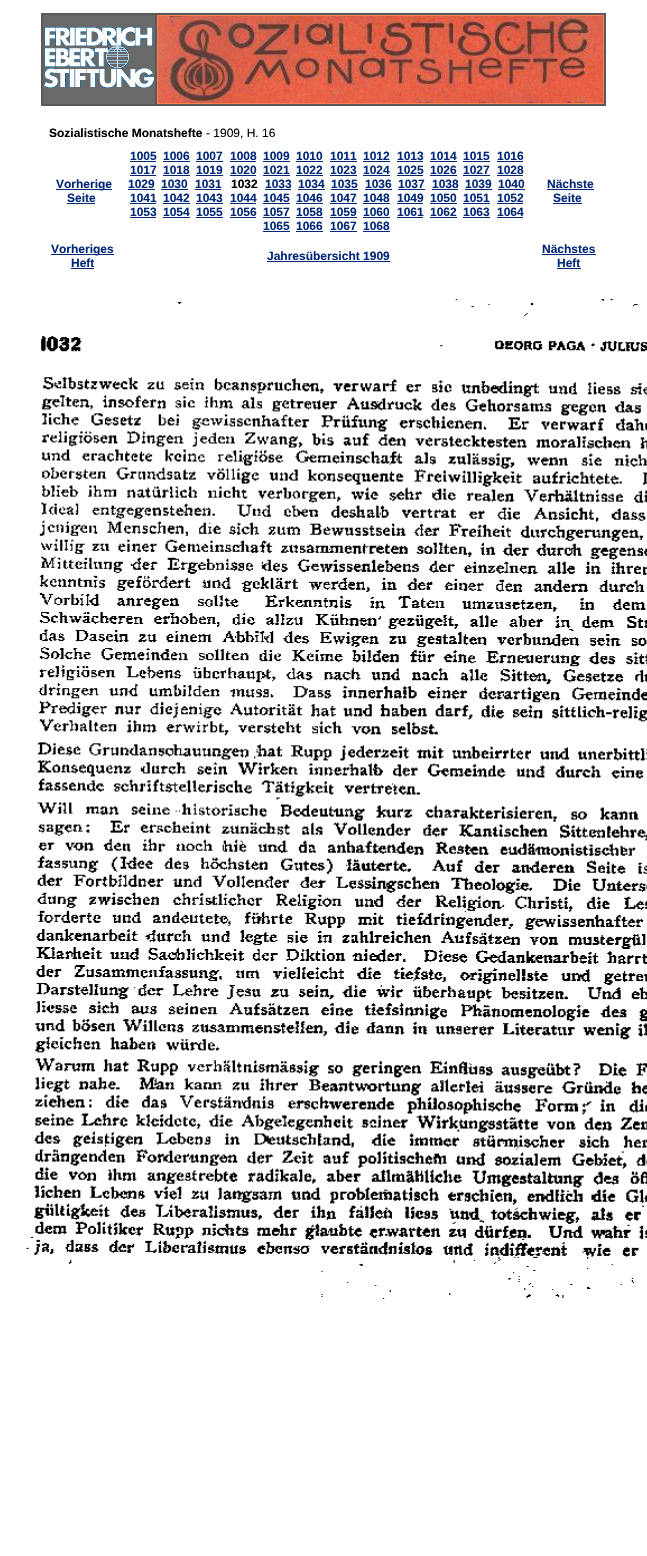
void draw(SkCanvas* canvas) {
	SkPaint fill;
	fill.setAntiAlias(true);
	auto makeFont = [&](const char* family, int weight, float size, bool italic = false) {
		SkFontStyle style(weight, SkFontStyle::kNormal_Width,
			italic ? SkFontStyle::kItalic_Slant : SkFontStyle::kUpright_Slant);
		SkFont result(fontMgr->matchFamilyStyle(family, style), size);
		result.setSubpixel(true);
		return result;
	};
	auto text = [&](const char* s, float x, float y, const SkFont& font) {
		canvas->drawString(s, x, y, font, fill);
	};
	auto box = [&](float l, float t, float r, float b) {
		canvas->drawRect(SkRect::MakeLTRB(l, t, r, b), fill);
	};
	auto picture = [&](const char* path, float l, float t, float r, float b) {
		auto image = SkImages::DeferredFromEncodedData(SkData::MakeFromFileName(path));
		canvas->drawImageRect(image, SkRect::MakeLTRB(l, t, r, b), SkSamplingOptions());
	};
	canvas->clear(0xFFFFFFFF);
	fill.setColor(0xFF595959);
	box(41, 13, 606, 106);
	fill.setColor(0xFF696969);
	box(43, 15, 155, 104);
	picture("image0.png", 44, 27, 154, 88);
	fill.setColor(0xFFFF7F50);
	box(157, 15, 604, 104);
	picture("image1.png", 158, 16, 603, 103);
	fill.setColor(0xFF012779);
	box(56, 189, 112, 190);
	box(67, 203, 95, 204);
	box(130, 161, 156, 162);
	box(163, 161, 190, 162);
	box(196, 161, 223, 162);
	box(230, 161, 256, 162);
	box(263, 161, 290, 162);
	box(296, 161, 323, 162);
	box(330, 161, 357, 162);
	box(363, 161, 390, 162);
	box(397, 161, 423, 162);
	box(430, 161, 457, 162);
	box(463, 161, 490, 162);
	box(497, 161, 523, 162);
	box(130, 175, 156, 176);
	box(163, 175, 190, 176);
	box(196, 175, 223, 176);
	box(230, 175, 256, 176);
	box(263, 175, 290, 176);
	box(296, 175, 323, 176);
	box(330, 175, 357, 176);
	box(363, 175, 390, 176);
	box(397, 175, 423, 176);
	box(430, 175, 457, 176);
	box(463, 175, 490, 176);
	box(497, 175, 523, 176);
	box(128, 189, 155, 190);
	box(161, 189, 188, 190);
	box(195, 189, 221, 190);
	box(265, 189, 291, 190);
	box(298, 189, 325, 190);
	box(331, 189, 358, 190);
	box(365, 189, 392, 190);
	box(398, 189, 425, 190);
	box(432, 189, 458, 190);
	box(465, 189, 492, 190);
	box(498, 189, 525, 190);
	box(130, 203, 156, 204);
	box(163, 203, 190, 204);
	box(196, 203, 223, 204);
	box(230, 203, 256, 204);
	box(263, 203, 290, 204);
	box(296, 203, 323, 204);
	box(330, 203, 357, 204);
	box(363, 203, 390, 204);
	box(397, 203, 423, 204);
	box(430, 203, 457, 204);
	box(463, 203, 490, 204);
	box(497, 203, 523, 204);
	box(130, 217, 156, 218);
	box(163, 217, 190, 218);
	box(196, 217, 223, 218);
	box(230, 217, 256, 218);
	box(263, 217, 290, 218);
	box(296, 217, 323, 218);
	box(330, 217, 357, 218);
	box(363, 217, 390, 218);
	box(397, 217, 423, 218);
	box(430, 217, 457, 218);
	box(463, 217, 490, 218);
	box(497, 217, 523, 218);
	box(263, 231, 290, 232);
	box(296, 231, 323, 232);
	box(330, 231, 357, 232);
	box(363, 231, 390, 232);
	box(547, 189, 594, 190);
	box(553, 203, 582, 204);
	box(51, 254, 114, 255);
	box(71, 268, 94, 269);
	box(267, 261, 390, 262);
	box(542, 254, 596, 255);
	box(557, 268, 581, 269);
	picture("image2.png", 26, 299, 647, 1299);
	auto font1 = makeFont("Liberation Sans", 700, 12);
	fill.setColor(0xFF000000);
	text("Sozialistische Monatshefte", 49, 137, font1);
	auto font2 = makeFont("Liberation Sans", 400, 12);
	text("- 1909, H. 16", 206, 137, font2);
	fill.setColor(0xFF012779);
	text("Vorherige", 56, 188, font1);
	text("Seite", 67, 202, font1);
	text("1005", 130, 160, font1);
	text("1006", 163, 160, font1);
	text("1007", 196, 160, font1);
	text("1008", 230, 160, font1);
	text("1009", 263, 160, font1);
	text("1010", 296, 160, font1);
	text("1011", 330, 160, font1);
	text("1012", 363, 160, font1);
	text("1013", 397, 160, font1);
	text("1014", 430, 160, font1);
	text("1015", 463, 160, font1);
	text("1016", 497, 160, font1);
	text("1017", 130, 174, font1);
	text("1018", 163, 174, font1);
	text("1019", 196, 174, font1);
	text("1020", 230, 174, font1);
	text("1021", 263, 174, font1);
	text("1022", 296, 174, font1);
	text("1023", 330, 174, font1);
	text("1024", 363, 174, font1);
	text("1025", 397, 174, font1);
	text("1026", 430, 174, font1);
	text("1027", 463, 174, font1);
	text("1028", 497, 174, font1);
	text("1029", 128, 188, font1);
	text("1030", 161, 188, font1);
	text("1031", 195, 188, font1);
	fill.setColor(0xFF000000);
	text("1032", 231, 188, font1);
	fill.setColor(0xFF012779);
	text("1033", 265, 188, font1);
	text("1034", 298, 188, font1);
	text("1035", 331, 188, font1);
	text("1036", 365, 188, font1);
	text("1037", 398, 188, font1);
	text("1038", 432, 188, font1);
	text("1039", 465, 188, font1);
	text("1040", 498, 188, font1);
	text("1041", 130, 202, font1);
	text("1042", 163, 202, font1);
	text("1043", 196, 202, font1);
	text("1044", 230, 202, font1);
	text("1045", 263, 202, font1);
	text("1046", 296, 202, font1);
	text("1047", 330, 202, font1);
	text("1048", 363, 202, font1);
	text("1049", 397, 202, font1);
	text("1050", 430, 202, font1);
	text("1051", 463, 202, font1);
	text("1052", 497, 202, font1);
	text("1053", 130, 216, font1);
	text("1054", 163, 216, font1);
	text("1055", 196, 216, font1);
	text("1056", 230, 216, font1);
	text("1057", 263, 216, font1);
	text("1058", 296, 216, font1);
	text("1059", 330, 216, font1);
	text("1060", 363, 216, font1);
	text("1061", 397, 216, font1);
	text("1062", 430, 216, font1);
	text("1063", 463, 216, font1);
	text("1064", 497, 216, font1);
	text("1065", 263, 230, font1);
	text("1066", 296, 230, font1);
	text("1067", 330, 230, font1);
	text("1068", 363, 230, font1);
	text("Nächste", 547, 188, font1);
	text("Seite", 553, 202, font1);
	text("Vorheriges", 51, 253, font1);
	text("Heft", 71, 267, font1);
	text("Jahresübersicht 1909", 267, 260, font1);
	text("Nächstes", 542, 253, font1);
	text("Heft", 557, 267, font1);
}
